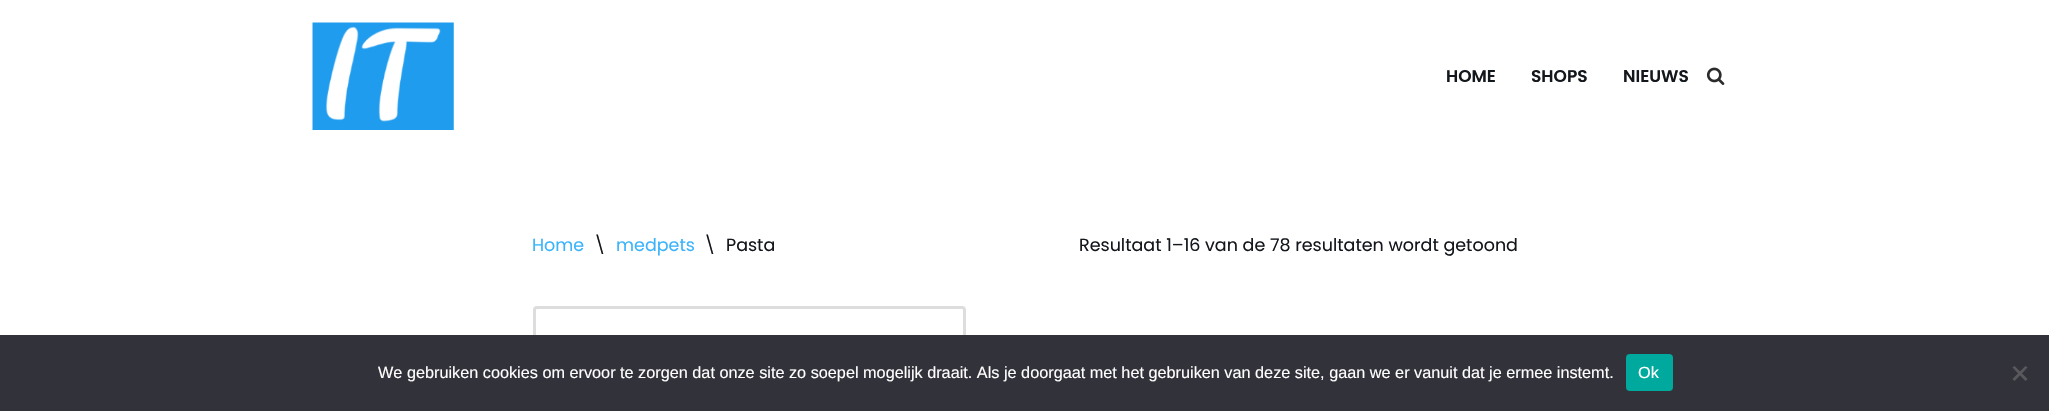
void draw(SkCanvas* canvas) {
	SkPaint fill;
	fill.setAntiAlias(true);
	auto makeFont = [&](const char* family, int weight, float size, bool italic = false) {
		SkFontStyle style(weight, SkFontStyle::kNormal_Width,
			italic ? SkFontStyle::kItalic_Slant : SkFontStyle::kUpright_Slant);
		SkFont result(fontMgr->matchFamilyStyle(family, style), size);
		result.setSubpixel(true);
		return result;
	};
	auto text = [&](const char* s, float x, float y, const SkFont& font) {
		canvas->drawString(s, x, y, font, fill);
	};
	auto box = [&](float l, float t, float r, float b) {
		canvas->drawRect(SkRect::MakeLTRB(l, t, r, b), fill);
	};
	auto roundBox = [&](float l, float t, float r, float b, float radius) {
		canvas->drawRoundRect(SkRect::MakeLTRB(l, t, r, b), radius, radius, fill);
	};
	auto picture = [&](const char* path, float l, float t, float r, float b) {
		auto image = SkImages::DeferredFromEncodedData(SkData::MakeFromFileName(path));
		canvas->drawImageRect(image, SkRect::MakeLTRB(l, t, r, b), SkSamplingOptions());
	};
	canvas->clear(0xFFFFFFFF);
	picture("image0.png", 312, 22, 454, 130);
	picture("image1.png", 1706, 67, 1725, 85);
	fill.setStyle(SkPaint::kStroke_Style);
	fill.setStrokeWidth(3);
	fill.setColor(0xFFDDDDDD);
	canvas->drawRoundRect(SkRect::MakeLTRB(534.5f, 307.5f, 964.5f, 371.5f), 2.5f, 2.5f, fill);
	fill.setStyle(SkPaint::kFill_Style);
	fill.setColor(0xFF32323A);
	box(0, 335, 2049, 411);
	fill.setColor(0xFF00A99D);
	roundBox(1626, 354, 1673, 391, 4);
	fill.setColor(0xFF59595D);
	canvas->drawPath(SkPathBuilder().moveTo(2025.5f, 366).lineTo(2027.5f, 367.5f).lineTo(2014.5f, 381).lineTo(2012.5f, 379).close().detach(), fill);
	canvas->drawPath(SkPathBuilder().moveTo(2012.5f, 367.5f).lineTo(2014.5f, 366).lineTo(2027.5f, 379).lineTo(2025.5f, 381).close().detach(), fill);
	auto font1 = makeFont("Poppins", 600, 17);
	fill.setColor(0xFF14171C);
	text("HOME", 1446, 82, font1);
	text("SHOPS", 1531, 82, font1);
	text("NIEUWS", 1623, 82, font1);
	auto font2 = makeFont("Poppins", 400, 17.5f);
	fill.setColor(0xFF3BB4FC);
	text("Home", 532, 251, font2);
	fill.setColor(0xFF14171C);
	text("\\", 594, 251, font2);
	fill.setColor(0xFF3BB4FC);
	text("medpets", 616, 251, font2);
	fill.setColor(0xFF14171C);
	text("\\", 704, 251, font2);
	text("Pasta", 726, 251, font2);
	text("Resultaat 1–16 van de 78 resultaten wordt getoond", 1079, 251, font2);
	auto font3 = makeFont("Liberation Sans", 400, 16.25f);
	fill.setColor(0xFFFFFFFF);
	text("We gebruiken cookies om ervoor te zorgen dat onze site zo soepel mogelijk draait. Als je doorgaat met het gebruiken van deze site, gaan we er vanuit dat je ermee instemt.", 378, 378, font3);
	text("Ok", 1638, 378, font3);
}
